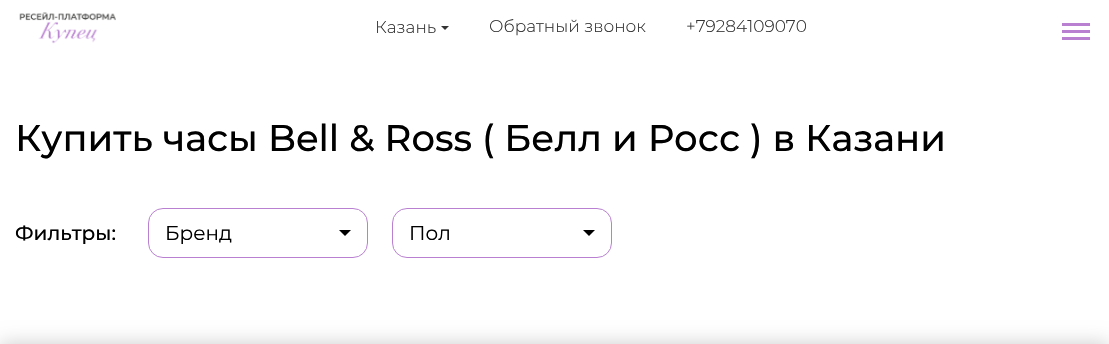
void draw(SkCanvas* canvas) {
	SkPaint fill;
	fill.setAntiAlias(true);
	auto makeFont = [&](const char* family, int weight, float size, bool italic = false) {
		SkFontStyle style(weight, SkFontStyle::kNormal_Width,
			italic ? SkFontStyle::kItalic_Slant : SkFontStyle::kUpright_Slant);
		SkFont result(fontMgr->matchFamilyStyle(family, style), size);
		result.setSubpixel(true);
		return result;
	};
	auto text = [&](const char* s, float x, float y, const SkFont& font) {
		canvas->drawString(s, x, y, font, fill);
	};
	auto box = [&](float l, float t, float r, float b) {
		canvas->drawRect(SkRect::MakeLTRB(l, t, r, b), fill);
	};
	auto picture = [&](const char* path, float l, float t, float r, float b) {
		auto image = SkImages::DeferredFromEncodedData(SkData::MakeFromFileName(path));
		canvas->drawImageRect(image, SkRect::MakeLTRB(l, t, r, b), SkSamplingOptions());
	};
	canvas->clear(0xFFFFFFFF);
	picture("image0.png", 19, 12, 116, 44);
	fill.setColor(0xFF333333);
	canvas->drawPath(SkPathBuilder().moveTo(441, 26).lineTo(449, 26).lineTo(445, 30).close().detach(), fill);
	fill.setColor(0xFFB980D1);
	box(1062, 30, 1090, 33);
	box(1062, 23, 1090, 26);
	box(1062, 37, 1090, 40);
	fill.setStyle(SkPaint::kStroke_Style);
	fill.setStrokeWidth(1);
	canvas->drawRoundRect(SkRect::MakeLTRB(148.5f, 208.5f, 367.5f, 257.5f), 14.5f, 14.5f, fill);
	fill.setStyle(SkPaint::kFill_Style);
	fill.setColor(0xFF000000);
	canvas->drawPath(SkPathBuilder().moveTo(339, 230).lineTo(351, 230).lineTo(345, 236).close().detach(), fill);
	fill.setStyle(SkPaint::kStroke_Style);
	fill.setColor(0xFFB980D1);
	canvas->drawRoundRect(SkRect::MakeLTRB(392.5f, 208.5f, 611.5f, 257.5f), 14.5f, 14.5f, fill);
	fill.setStyle(SkPaint::kFill_Style);
	fill.setColor(0xFF000000);
	canvas->drawPath(SkPathBuilder().moveTo(583, 230).lineTo(595, 230).lineTo(589, 236).close().detach(), fill);
	fill.setColor(0x33000000);
	fill.setMaskFilter(SkMaskFilter::MakeBlur(kNormal_SkBlurStyle, 10));
	canvas->drawRect(SkRect::MakeLTRB(0, 344, 1109, 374), fill);
	fill.setMaskFilter(nullptr);
	auto font1 = makeFont("Montserrat", 300, 17);
	fill.setColor(0xFF333333);
	text("Казань", 375, 33, font1);
	text("Обратный звонок", 489, 32, font1);
	text("+79284109070", 686, 32, font1);
	auto font2 = makeFont("Montserrat", 500, 37);
	fill.setColor(0xFF000000);
	text("Купить часы Bell & Ross ( Белл и Росс ) в Казани", 15, 151, font2);
	auto font3 = makeFont("Montserrat", 500, 20);
	text("Фильтры:", 15, 240, font3);
	auto font4 = makeFont("Montserrat", 400, 20);
	text("Бренд", 165, 240, font4);
	text("Пол", 409, 240, font4);
}
